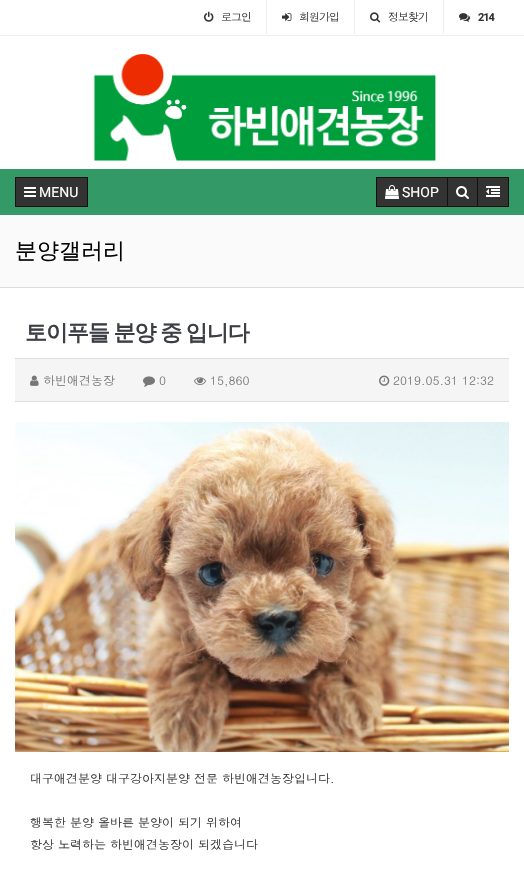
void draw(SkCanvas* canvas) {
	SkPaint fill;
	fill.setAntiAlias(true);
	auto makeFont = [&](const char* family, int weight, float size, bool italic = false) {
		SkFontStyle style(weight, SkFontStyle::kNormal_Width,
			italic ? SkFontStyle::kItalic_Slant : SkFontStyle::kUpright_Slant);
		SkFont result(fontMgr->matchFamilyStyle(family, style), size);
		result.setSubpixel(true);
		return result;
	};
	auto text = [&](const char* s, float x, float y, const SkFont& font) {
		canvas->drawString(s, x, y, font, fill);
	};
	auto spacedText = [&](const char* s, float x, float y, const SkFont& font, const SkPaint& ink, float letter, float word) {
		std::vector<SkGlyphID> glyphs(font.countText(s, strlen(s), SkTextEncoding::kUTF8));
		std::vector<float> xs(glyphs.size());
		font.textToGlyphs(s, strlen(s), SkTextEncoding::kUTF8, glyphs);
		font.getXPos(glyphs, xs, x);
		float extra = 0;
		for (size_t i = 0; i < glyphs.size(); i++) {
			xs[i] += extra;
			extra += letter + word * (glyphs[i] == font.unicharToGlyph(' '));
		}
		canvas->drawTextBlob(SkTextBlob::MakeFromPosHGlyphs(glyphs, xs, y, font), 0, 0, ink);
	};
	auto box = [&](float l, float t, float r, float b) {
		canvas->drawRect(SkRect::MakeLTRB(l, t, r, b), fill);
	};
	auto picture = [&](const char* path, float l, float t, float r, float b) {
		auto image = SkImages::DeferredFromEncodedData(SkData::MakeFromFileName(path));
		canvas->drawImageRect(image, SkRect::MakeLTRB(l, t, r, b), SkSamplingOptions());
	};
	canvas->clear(0xFFFFFFFF);
	fill.setColor(0xFFEEEEEE);
	box(0, 35, 524, 36);
	box(266, 0, 267, 34);
	picture("image0.png", 204, 11, 214, 22);
	box(354, 0, 355, 34);
	picture("image1.png", 282, 13, 292, 21);
	box(443, 0, 444, 34);
	picture("image2.png", 370, 12, 381, 23);
	picture("image3.png", 459, 13, 470, 22);
	picture("image4.png", 93, 54, 436, 161);
	fill.setColor(0xFF339966);
	box(0, 169, 524, 215);
	fill.setColor(0xFF333333);
	canvas->drawRect(SkRect::MakeLTRB(15.5f, 177.5f, 87.5f, 206.5f), fill);
	fill.setStyle(SkPaint::kStroke_Style);
	fill.setStrokeWidth(1);
	fill.setColor(0xFF111111);
	canvas->drawRect(SkRect::MakeLTRB(15.5f, 177.5f, 87.5f, 206.5f), fill);
	picture("image5.png", 24, 187, 36, 197);
	fill.setStyle(SkPaint::kFill_Style);
	fill.setColor(0xFF333333);
	canvas->drawRect(SkRect::MakeLTRB(376.5f, 177.5f, 447.5f, 206.5f), fill);
	fill.setStyle(SkPaint::kStroke_Style);
	fill.setColor(0xFF111111);
	canvas->drawRect(SkRect::MakeLTRB(376.5f, 177.5f, 447.5f, 206.5f), fill);
	picture("image6.png", 385, 185, 399, 199);
	fill.setStyle(SkPaint::kFill_Style);
	fill.setColor(0xFF333333);
	canvas->drawRect(SkRect::MakeLTRB(447.5f, 177.5f, 477.5f, 206.5f), fill);
	fill.setStyle(SkPaint::kStroke_Style);
	fill.setColor(0xFF111111);
	canvas->drawRect(SkRect::MakeLTRB(447.5f, 177.5f, 477.5f, 206.5f), fill);
	picture("image7.png", 456, 186, 469, 199);
	fill.setStyle(SkPaint::kFill_Style);
	fill.setColor(0xFF333333);
	canvas->drawRect(SkRect::MakeLTRB(477.5f, 177.5f, 508.5f, 206.5f), fill);
	fill.setStyle(SkPaint::kStroke_Style);
	fill.setColor(0xFF111111);
	canvas->drawRect(SkRect::MakeLTRB(477.5f, 177.5f, 508.5f, 206.5f), fill);
	picture("image8.png", 486, 186, 500, 197);
	fill.setStyle(SkPaint::kFill_Style);
	fill.setColor(0xFFFAFAFA);
	box(0, 215, 524, 287);
	fill.setColor(0xFFDDDDDD);
	box(0, 287, 524, 288);
	box(15, 358, 509, 359);
	fill.setColor(0xFFF5F5F5);
	box(15, 359, 509, 401);
	fill.setColor(0xFFDDDDDD);
	box(15, 401, 509, 402);
	picture("image9.png", 30, 375, 39, 386);
	picture("image10.png", 143, 376, 155, 387);
	picture("image11.png", 194, 377, 206, 385);
	picture("image12.png", 379, 375, 390, 386);
	picture("image13.png", 15, 422, 509, 752);
	auto font1 = makeFont("Dotum", 400, 11);
	fill.setColor(0xFF333333);
	spacedText("로그인", 221, 21, font1, fill, -1, 0);
	spacedText("회원가입", 299, 21, font1, fill, -1, 0);
	spacedText("정보찾기", 388, 21, font1, fill, -1, 0);
	auto font2 = makeFont("Roboto", 700, 11);
	spacedText("214", 478, 21, font2, fill, -1, 0);
	auto font3 = makeFont("Roboto", 400, 14);
	fill.setColor(0xFFFFFFFF);
	text("MENU", 39, 197, font3);
	text("SHOP", 402, 197, font3);
	auto font4 = makeFont("WenQuanYi Zen Hei", 500, 22);
	fill.setColor(0xFF000000);
	text("분양갤러리", 15, 258, font4);
	auto font5 = makeFont("WenQuanYi Zen Hei", 700, 22);
	fill.setColor(0xFF3B3E43);
	spacedText("토이푸들 분양 중 입니다", 25, 340, font5, fill, -1, -1);
	auto font6 = makeFont("Dotum", 400, 12);
	fill.setColor(0xFF777777);
	text("하빈애견농장", 43, 385, font6);
	text("0", 159, 385, font6);
	text("15,860", 210, 385, font6);
	text("2019.05.31 12:32", 393, 385, font6);
	fill.setColor(0xFF333333);
	text("대구애견분양 대구강아지분양 전문 하빈애견농장입니다.", 30, 783, font6);
	text("행복한 분양 올바른 분양이 되기 위하여", 30, 827, font6);
	text("항상 노력하는 하빈애견농장이 되겠습니다", 30, 849, font6);
}
